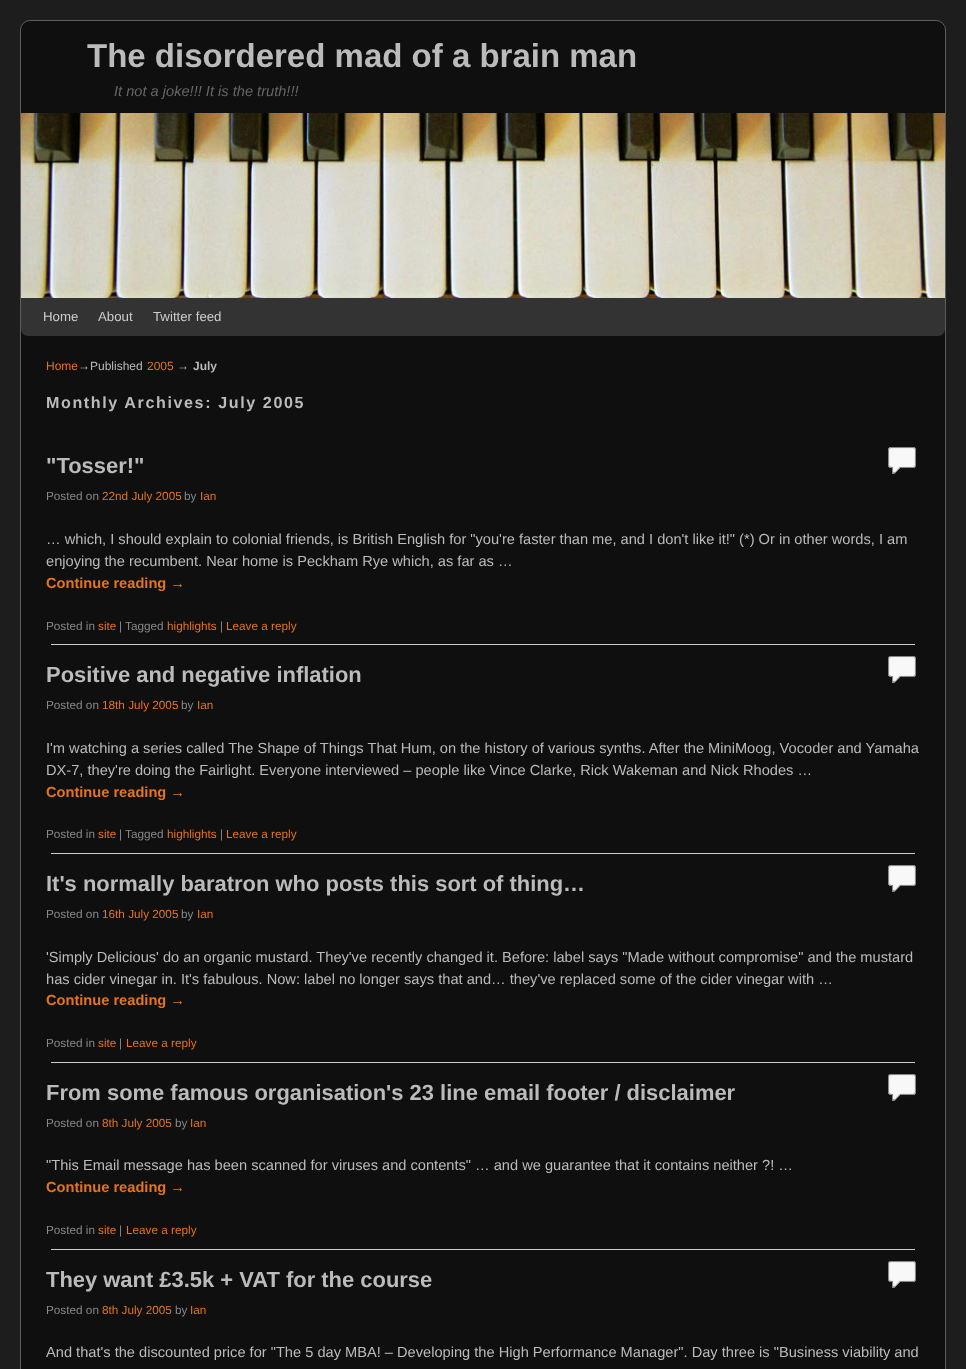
<!DOCTYPE html>
<meta charset="utf-8">
<style>body { margin: 0 } canvas { display: block }</style>
<canvas id="canvas" width="966" height="1369"></canvas>
<img id="img1" src="images/1.png" hidden>
<img id="img2" src="images/2.png" hidden>
<script>
window.onload = function () {
    const canvas = document.getElementById('canvas');
    const context = canvas.getContext('2d');
    context.miterLimit = 4;
    context.fontKerning = 'normal';

    context.fillStyle = 'rgb(29, 29, 29)';
    context.fillRect(0, 0, 966, 1369);
    context.fillStyle = 'rgb(15, 15, 15)';
    context.beginPath();
    context.roundRect(20.5, 20.5, 925, 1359, 9.5);
    context.fill();
    context.strokeStyle = 'rgb(94, 94, 94)';
    context.stroke();
    context.drawImage(document.getElementById('img1'), 21, 113, 924, 185);
    context.fillStyle = 'rgb(51, 51, 51)';
    context.beginPath();
    context.roundRect(21, 298, 924, 38, [0, 0, 7, 7]);
    context.fill();
    context.fillStyle = 'rgb(204, 204, 204)';
    context.fillRect(51, 644, 864, 1);
    context.drawImage(document.getElementById('img2'), 888, 447, 28, 27);
    context.fillRect(51, 853, 864, 1);
    context.drawImage(document.getElementById('img2'), 888, 656, 28, 27);
    context.fillRect(51, 1062, 864, 1);
    context.drawImage(document.getElementById('img2'), 888, 865, 28, 27);
    context.fillRect(51, 1249, 864, 1);
    context.drawImage(document.getElementById('img2'), 888, 1074, 28, 27);
    context.drawImage(document.getElementById('img2'), 888, 1261, 28, 27);
    context.font = 'bold 33px Liberation Sans';
    context.fillStyle = 'rgb(187, 187, 187)';
    context.fillText('The disordered mad of a brain man', 87, 67);
    context.font = 'italic 14.63px Liberation Sans';
    context.fillStyle = 'rgb(102, 102, 102)';
    context.fillText('It not a joke!!! It is the truth!!!', 114, 96);
    context.font = '13.25px Liberation Sans';
    context.fillStyle = 'rgb(204, 204, 204)';
    context.fillText('Home', 43, 321);
    context.fillText('About', 98, 321);
    context.fillText('Twitter feed', 153, 321);
    context.font = '12px Liberation Sans';
    context.fillStyle = 'rgb(228, 116, 31)';
    context.fillText('Home', 46, 370);
    context.fillStyle = 'rgb(187, 187, 187)';
    context.fillText('→Published', 78, 370);
    context.fillStyle = 'rgb(228, 116, 31)';
    context.fillText('2005', 147, 370);
    context.fillStyle = 'rgb(187, 187, 187)';
    context.fillText('→', 177, 370);
    context.font = 'bold 12px Liberation Sans';
    context.fillText('July', 193, 370);
    context.letterSpacing = '1.6px';
    context.font = 'bold 16.1px Liberation Sans';
    context.fillText('Monthly Archives: July 2005', 46, 408);
    context.letterSpacing = '0px';
    context.font = 'bold 21.95px Liberation Sans';
    context.fillText('"Tosser!"', 46, 473);
    context.font = '11.75px Liberation Sans';
    context.fillStyle = 'rgb(136, 136, 136)';
    context.fillText('Posted on', 46, 500);
    context.fillStyle = 'rgb(228, 116, 31)';
    context.fillText('22nd July 2005', 102, 500);
    context.fillStyle = 'rgb(136, 136, 136)';
    context.fillText('by', 184, 500);
    context.fillStyle = 'rgb(228, 116, 31)';
    context.fillText('Ian', 200, 500);
    context.font = '14.63px Liberation Sans';
    context.fillStyle = 'rgb(187, 187, 187)';
    context.fillText('… which, I should explain to colonial friends, is British English for "you\'re faster than me, and I don\'t like it!" (*) Or in other words, I am', 46, 544);
    context.fillText('enjoying the recumbent. Near home is Peckham Rye which, as far as …', 46, 566);
    context.font = 'bold 14.63px Liberation Sans';
    context.fillStyle = 'rgb(228, 116, 31)';
    context.fillText('Continue reading →', 46, 588);
    context.font = '11.75px Liberation Sans';
    context.fillStyle = 'rgb(136, 136, 136)';
    context.fillText('Posted in', 46, 630);
    context.fillStyle = 'rgb(228, 116, 31)';
    context.fillText('site', 98, 630);
    context.fillStyle = 'rgb(136, 136, 136)';
    context.fillText('| Tagged', 119, 630);
    context.fillStyle = 'rgb(228, 116, 31)';
    context.fillText('highlights', 167, 630);
    context.fillStyle = 'rgb(136, 136, 136)';
    context.fillText('|', 220, 630);
    context.fillStyle = 'rgb(228, 116, 31)';
    context.fillText('Leave a reply', 226, 630);
    context.font = 'bold 21.95px Liberation Sans';
    context.fillStyle = 'rgb(187, 187, 187)';
    context.fillText('Positive and negative inflation', 46, 682);
    context.font = '11.75px Liberation Sans';
    context.fillStyle = 'rgb(136, 136, 136)';
    context.fillText('Posted on', 46, 709);
    context.fillStyle = 'rgb(228, 116, 31)';
    context.fillText('18th July 2005', 102, 709);
    context.fillStyle = 'rgb(136, 136, 136)';
    context.fillText('by', 181, 709);
    context.fillStyle = 'rgb(228, 116, 31)';
    context.fillText('Ian', 197, 709);
    context.font = '14.63px Liberation Sans';
    context.fillStyle = 'rgb(187, 187, 187)';
    context.fillText('I\'m watching a series called The Shape of Things That Hum, on the history of various synths. After the MiniMoog, Vocoder and Yamaha', 46, 753);
    context.fillText('DX-7, they\'re doing the Fairlight. Everyone interviewed – people like Vince Clarke, Rick Wakeman and Nick Rhodes …', 46, 775);
    context.font = 'bold 14.63px Liberation Sans';
    context.fillStyle = 'rgb(228, 116, 31)';
    context.fillText('Continue reading →', 46, 797);
    context.font = '11.75px Liberation Sans';
    context.fillStyle = 'rgb(136, 136, 136)';
    context.fillText('Posted in', 46, 838);
    context.fillStyle = 'rgb(228, 116, 31)';
    context.fillText('site', 98, 838);
    context.fillStyle = 'rgb(136, 136, 136)';
    context.fillText('| Tagged', 119, 838);
    context.fillStyle = 'rgb(228, 116, 31)';
    context.fillText('highlights', 167, 838);
    context.fillStyle = 'rgb(136, 136, 136)';
    context.fillText('|', 220, 838);
    context.fillStyle = 'rgb(228, 116, 31)';
    context.fillText('Leave a reply', 226, 838);
    context.font = 'bold 21.95px Liberation Sans';
    context.fillStyle = 'rgb(187, 187, 187)';
    context.fillText('It\'s normally baratron who posts this sort of thing…', 46, 891);
    context.font = '11.75px Liberation Sans';
    context.fillStyle = 'rgb(136, 136, 136)';
    context.fillText('Posted on', 46, 918);
    context.fillStyle = 'rgb(228, 116, 31)';
    context.fillText('16th July 2005', 102, 918);
    context.fillStyle = 'rgb(136, 136, 136)';
    context.fillText('by', 181, 918);
    context.fillStyle = 'rgb(228, 116, 31)';
    context.fillText('Ian', 197, 918);
    context.font = '14.63px Liberation Sans';
    context.fillStyle = 'rgb(187, 187, 187)';
    context.fillText('\'Simply Delicious\' do an organic mustard. They\'ve recently changed it. Before: label says "Made without compromise" and the mustard', 46, 962);
    context.fillText('has cider vinegar in. It\'s fabulous. Now: label no longer says that and… they\'ve replaced some of the cider vinegar with …', 46, 984);
    context.font = 'bold 14.63px Liberation Sans';
    context.fillStyle = 'rgb(228, 116, 31)';
    context.fillText('Continue reading →', 46, 1005);
    context.font = '11.75px Liberation Sans';
    context.fillStyle = 'rgb(136, 136, 136)';
    context.fillText('Posted in', 46, 1047);
    context.fillStyle = 'rgb(228, 116, 31)';
    context.fillText('site', 98, 1047);
    context.fillStyle = 'rgb(136, 136, 136)';
    context.fillText('|', 119, 1047);
    context.fillStyle = 'rgb(228, 116, 31)';
    context.fillText('Leave a reply', 126, 1047);
    context.font = 'bold 21.95px Liberation Sans';
    context.fillStyle = 'rgb(187, 187, 187)';
    context.fillText('From some famous organisation\'s 23 line email footer / disclaimer', 46, 1100);
    context.font = '11.75px Liberation Sans';
    context.fillStyle = 'rgb(136, 136, 136)';
    context.fillText('Posted on', 46, 1127);
    context.fillStyle = 'rgb(228, 116, 31)';
    context.fillText('8th July 2005', 102, 1127);
    context.fillStyle = 'rgb(136, 136, 136)';
    context.fillText('by', 175, 1127);
    context.fillStyle = 'rgb(228, 116, 31)';
    context.fillText('Ian', 190, 1127);
    context.font = '14.63px Liberation Sans';
    context.fillStyle = 'rgb(187, 187, 187)';
    context.fillText('"This Email message has been scanned for viruses and contents" … and we guarantee that it contains neither ?! …', 46, 1170);
    context.font = 'bold 14.63px Liberation Sans';
    context.fillStyle = 'rgb(228, 116, 31)';
    context.fillText('Continue reading →', 46, 1192);
    context.font = '11.75px Liberation Sans';
    context.fillStyle = 'rgb(136, 136, 136)';
    context.fillText('Posted in', 46, 1234);
    context.fillStyle = 'rgb(228, 116, 31)';
    context.fillText('site', 98, 1234);
    context.fillStyle = 'rgb(136, 136, 136)';
    context.fillText('|', 119, 1234);
    context.fillStyle = 'rgb(228, 116, 31)';
    context.fillText('Leave a reply', 126, 1234);
    context.font = 'bold 21.95px Liberation Sans';
    context.fillStyle = 'rgb(187, 187, 187)';
    context.fillText('They want £3.5k + VAT for the course', 46, 1287);
    context.font = '11.75px Liberation Sans';
    context.fillStyle = 'rgb(136, 136, 136)';
    context.fillText('Posted on', 46, 1314);
    context.fillStyle = 'rgb(228, 116, 31)';
    context.fillText('8th July 2005', 102, 1314);
    context.fillStyle = 'rgb(136, 136, 136)';
    context.fillText('by', 175, 1314);
    context.fillStyle = 'rgb(228, 116, 31)';
    context.fillText('Ian', 190, 1314);
    context.font = '14.63px Liberation Sans';
    context.fillStyle = 'rgb(187, 187, 187)';
    context.fillText('And that\'s the discounted price for "The 5 day MBA! – Developing the High Performance Manager". Day three is "Business viability and', 46, 1357);
};
</script>
